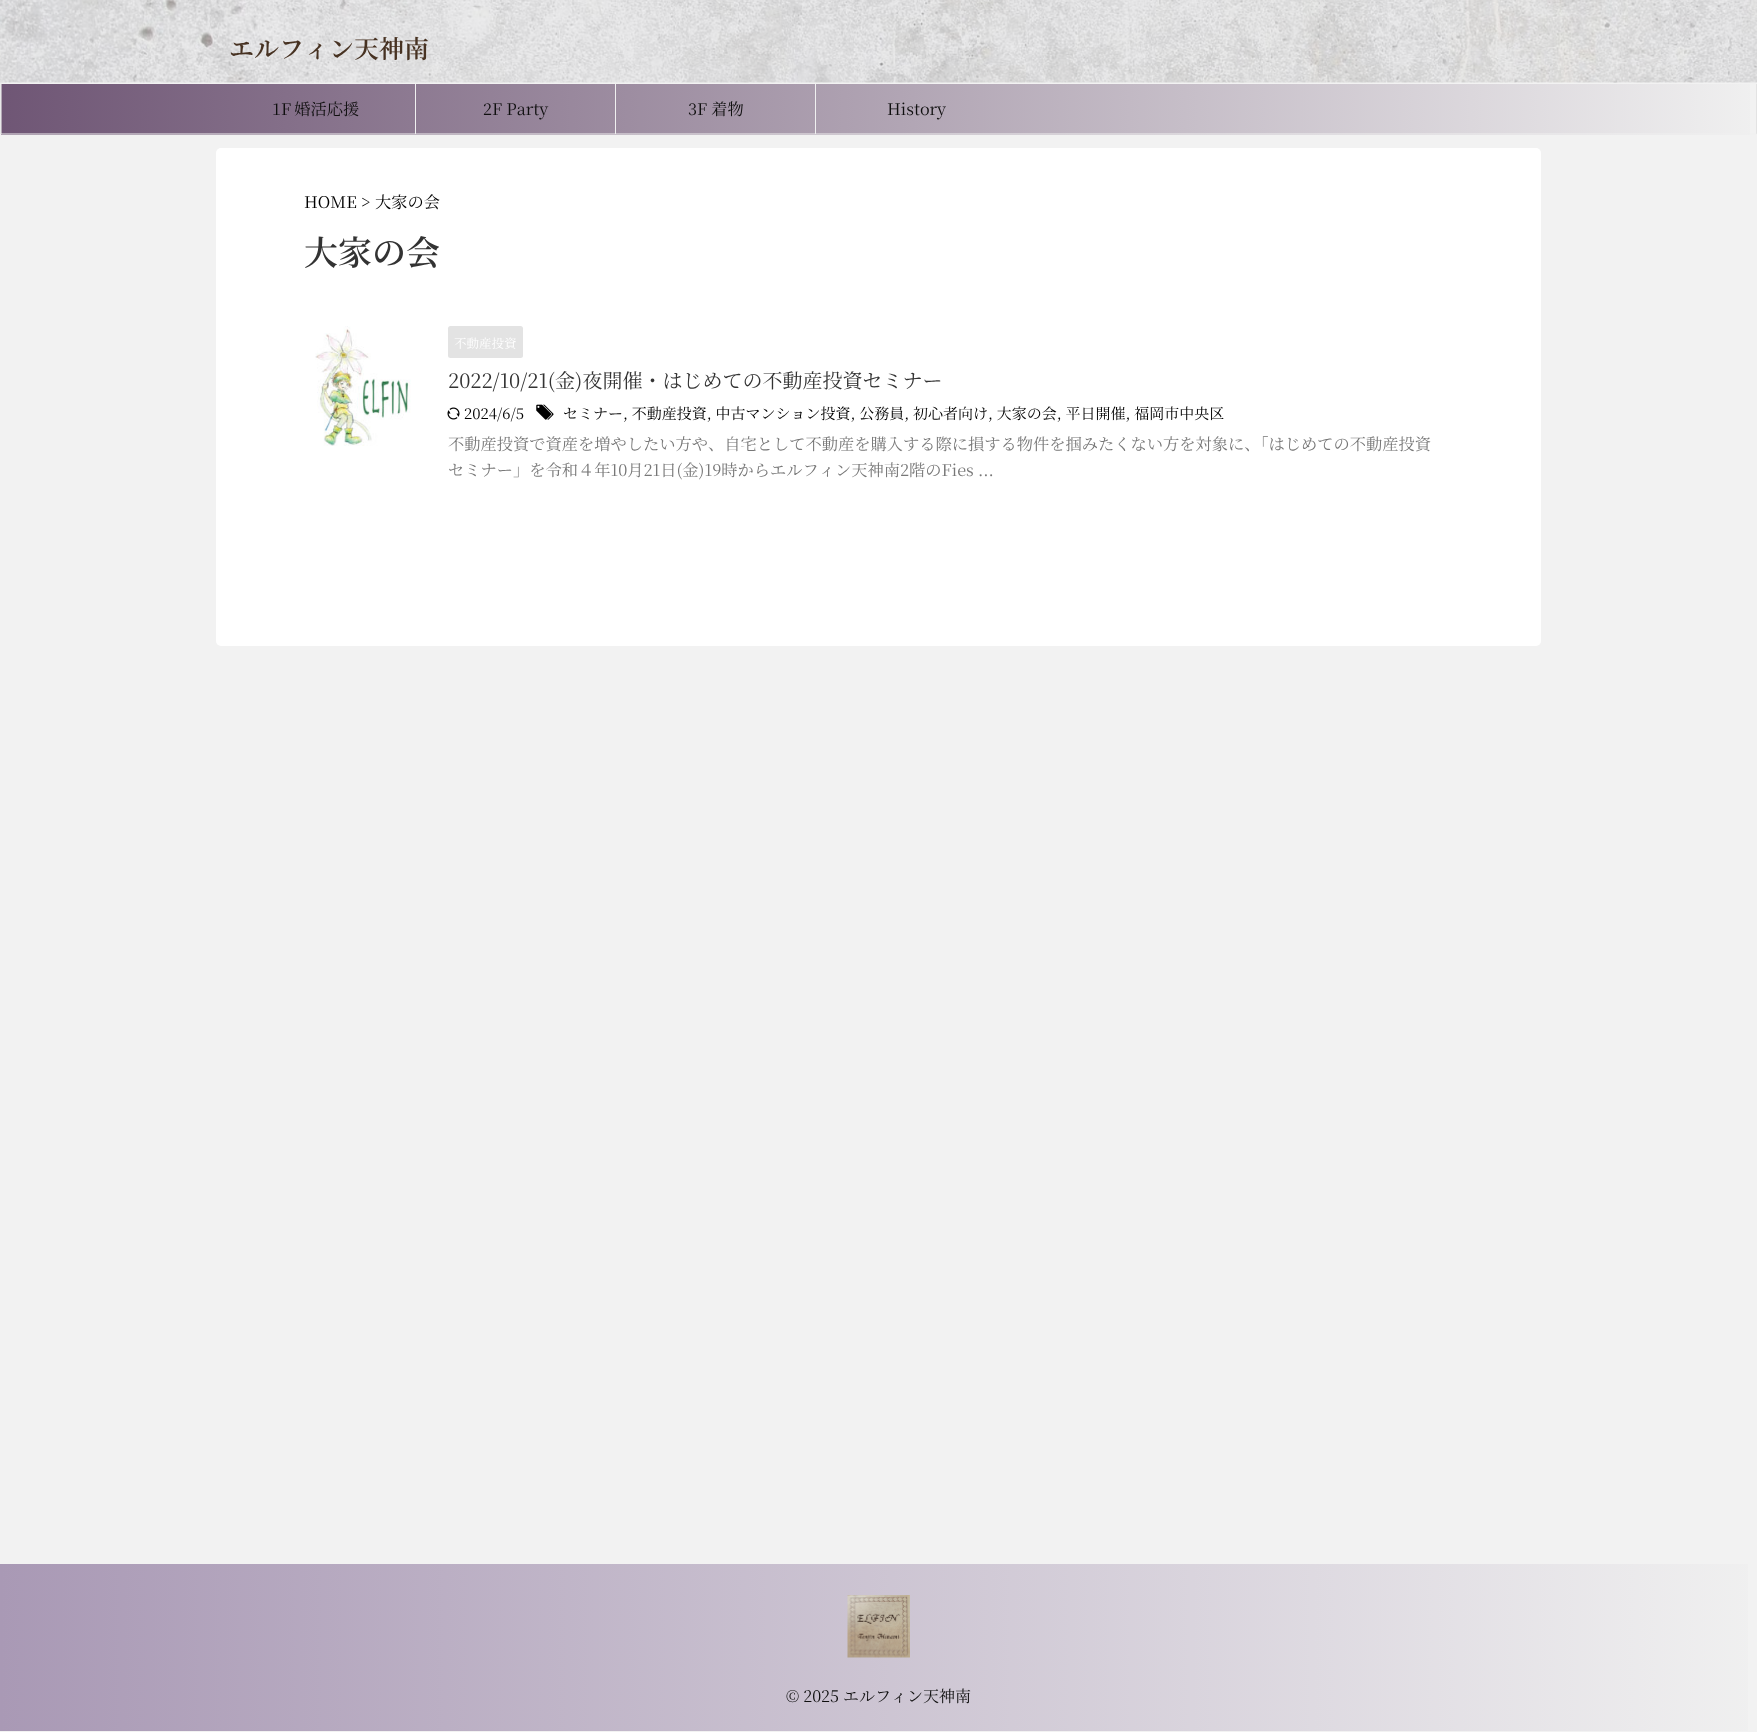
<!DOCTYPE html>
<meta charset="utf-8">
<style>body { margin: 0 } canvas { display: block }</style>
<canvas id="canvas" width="1757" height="1732"></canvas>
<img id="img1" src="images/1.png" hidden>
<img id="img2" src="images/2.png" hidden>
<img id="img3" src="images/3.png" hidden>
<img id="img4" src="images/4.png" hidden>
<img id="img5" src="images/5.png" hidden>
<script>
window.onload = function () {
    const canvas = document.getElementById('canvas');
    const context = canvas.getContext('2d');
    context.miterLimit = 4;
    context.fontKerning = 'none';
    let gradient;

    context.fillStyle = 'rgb(242, 242, 242)';
    context.fillRect(0, 0, 1757, 1732);
    context.drawImage(document.getElementById('img1'), 0, 0, 1757, 83);
    gradient = context.createLinearGradient(1756, 109, 1.2, 109);
    gradient.addColorStop(0, 'rgb(240, 240, 240)');
    gradient.addColorStop(1, 'rgb(111, 86, 117)');
    context.fillStyle = gradient;
    context.fillRect(1, 84, 1749, 51);
    context.fillStyle = 'rgb(227, 227, 227)';
    context.fillRect(1756, 84, 1, 50);
    context.beginPath();
    context.moveTo(1756.5, 134);
    context.lineTo(1, 134);
    context.strokeStyle = 'rgb(240, 240, 240)';
    context.lineWidth = 1.2;
    context.stroke();
    context.beginPath();
    context.moveTo(1, 134);
    context.lineTo(1, 83.5);
    context.strokeStyle = 'rgb(227, 227, 227)';
    context.stroke();
    context.fillStyle = 'rgb(240, 240, 240)';
    context.fillRect(415, 84, 1, 50);
    context.fillRect(615, 84, 1, 50);
    context.fillRect(815, 84, 1, 50);
    context.fillStyle = 'rgb(255, 255, 255)';
    context.beginPath();
    context.roundRect(216, 148, 1325, 498, 5);
    context.fill();
    context.drawImage(document.getElementById('img2'), 315, 326, 96, 120);
    context.fillStyle = 'rgb(227, 227, 227)';
    context.beginPath();
    context.roundRect(448, 326, 75, 32, 2.5);
    context.fill();
    context.drawImage(document.getElementById('img3'), 447, 407, 13, 13);
    context.drawImage(document.getElementById('img4'), 536, 404, 18, 16);
    gradient = context.createLinearGradient(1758, 1648, 0, 1648);
    gradient.addColorStop(0, 'rgb(240, 240, 240)');
    gradient.addColorStop(1, 'rgb(169, 153, 181)');
    context.fillStyle = gradient;
    context.fillRect(0, 1564, 1748, 167);
    context.drawImage(document.getElementById('img5'), 847, 1595, 63, 63);
    context.font = '600 25px Noto Serif JP';
    context.fillStyle = 'rgb(71, 50, 34)';
    context.fillText('エルフィン天神南', 229, 58);
    context.wordSpacing = '-1px';
    context.font = '16.25px Noto Serif JP';
    context.fillStyle = 'rgb(15, 15, 15)';
    context.fillText('1F 婚活応援', 272, 115);
    context.wordSpacing = '0px';
    context.fillText('2F Party', 483, 115);
    context.fillText('3F 着物', 688, 115);
    context.fillText('History', 887, 115);
    context.fillStyle = 'rgb(0, 0, 0)';
    context.fillText('HOME >', 304, 208);
    context.fillText('大家の会', 375, 208);
    context.font = '600 34px Noto Serif JP';
    context.fillStyle = 'rgb(51, 51, 51)';
    context.fillText('大家の会', 304, 265);
    context.font = '12.5px Noto Serif JP';
    context.fillStyle = 'rgb(255, 255, 255)';
    context.fillText('不動産投資', 454, 348);
    context.font = '20px Noto Serif JP';
    context.fillStyle = 'rgb(51, 51, 51)';
    context.fillText('2022/10/21(金)夜開催・はじめての不動産投資セミナー', 448, 388);
    context.font = '15px Noto Serif JP';
    context.fillStyle = 'rgb(0, 0, 0)';
    context.fillText('2024/6/5', 464, 419);
    context.fillText('セミナー, 不動産投資, 中古マンション投資, 公務員, 初心者向け, 大家の会, 平日開催, 福岡市中央区', 563, 419);
    context.font = '16.25px Noto Serif JP';
    context.fillStyle = 'rgb(119, 119, 119)';
    context.fillText('不動産投資で資産を増やしたい方や、自宅として不動産を購入する際に損する物件を掴みたくない方を対象に、「はじめての不動産投資', 448, 450);
    context.fillText('セミナー」を令和４年10月21日(金)19時からエルフィン天神南2階のFies ...', 448, 476);
    context.font = '16px Noto Serif JP';
    context.fillStyle = 'rgb(15, 15, 15)';
    context.fillText('© 2025 エルフィン天神南', 786, 1702);
};
</script>
